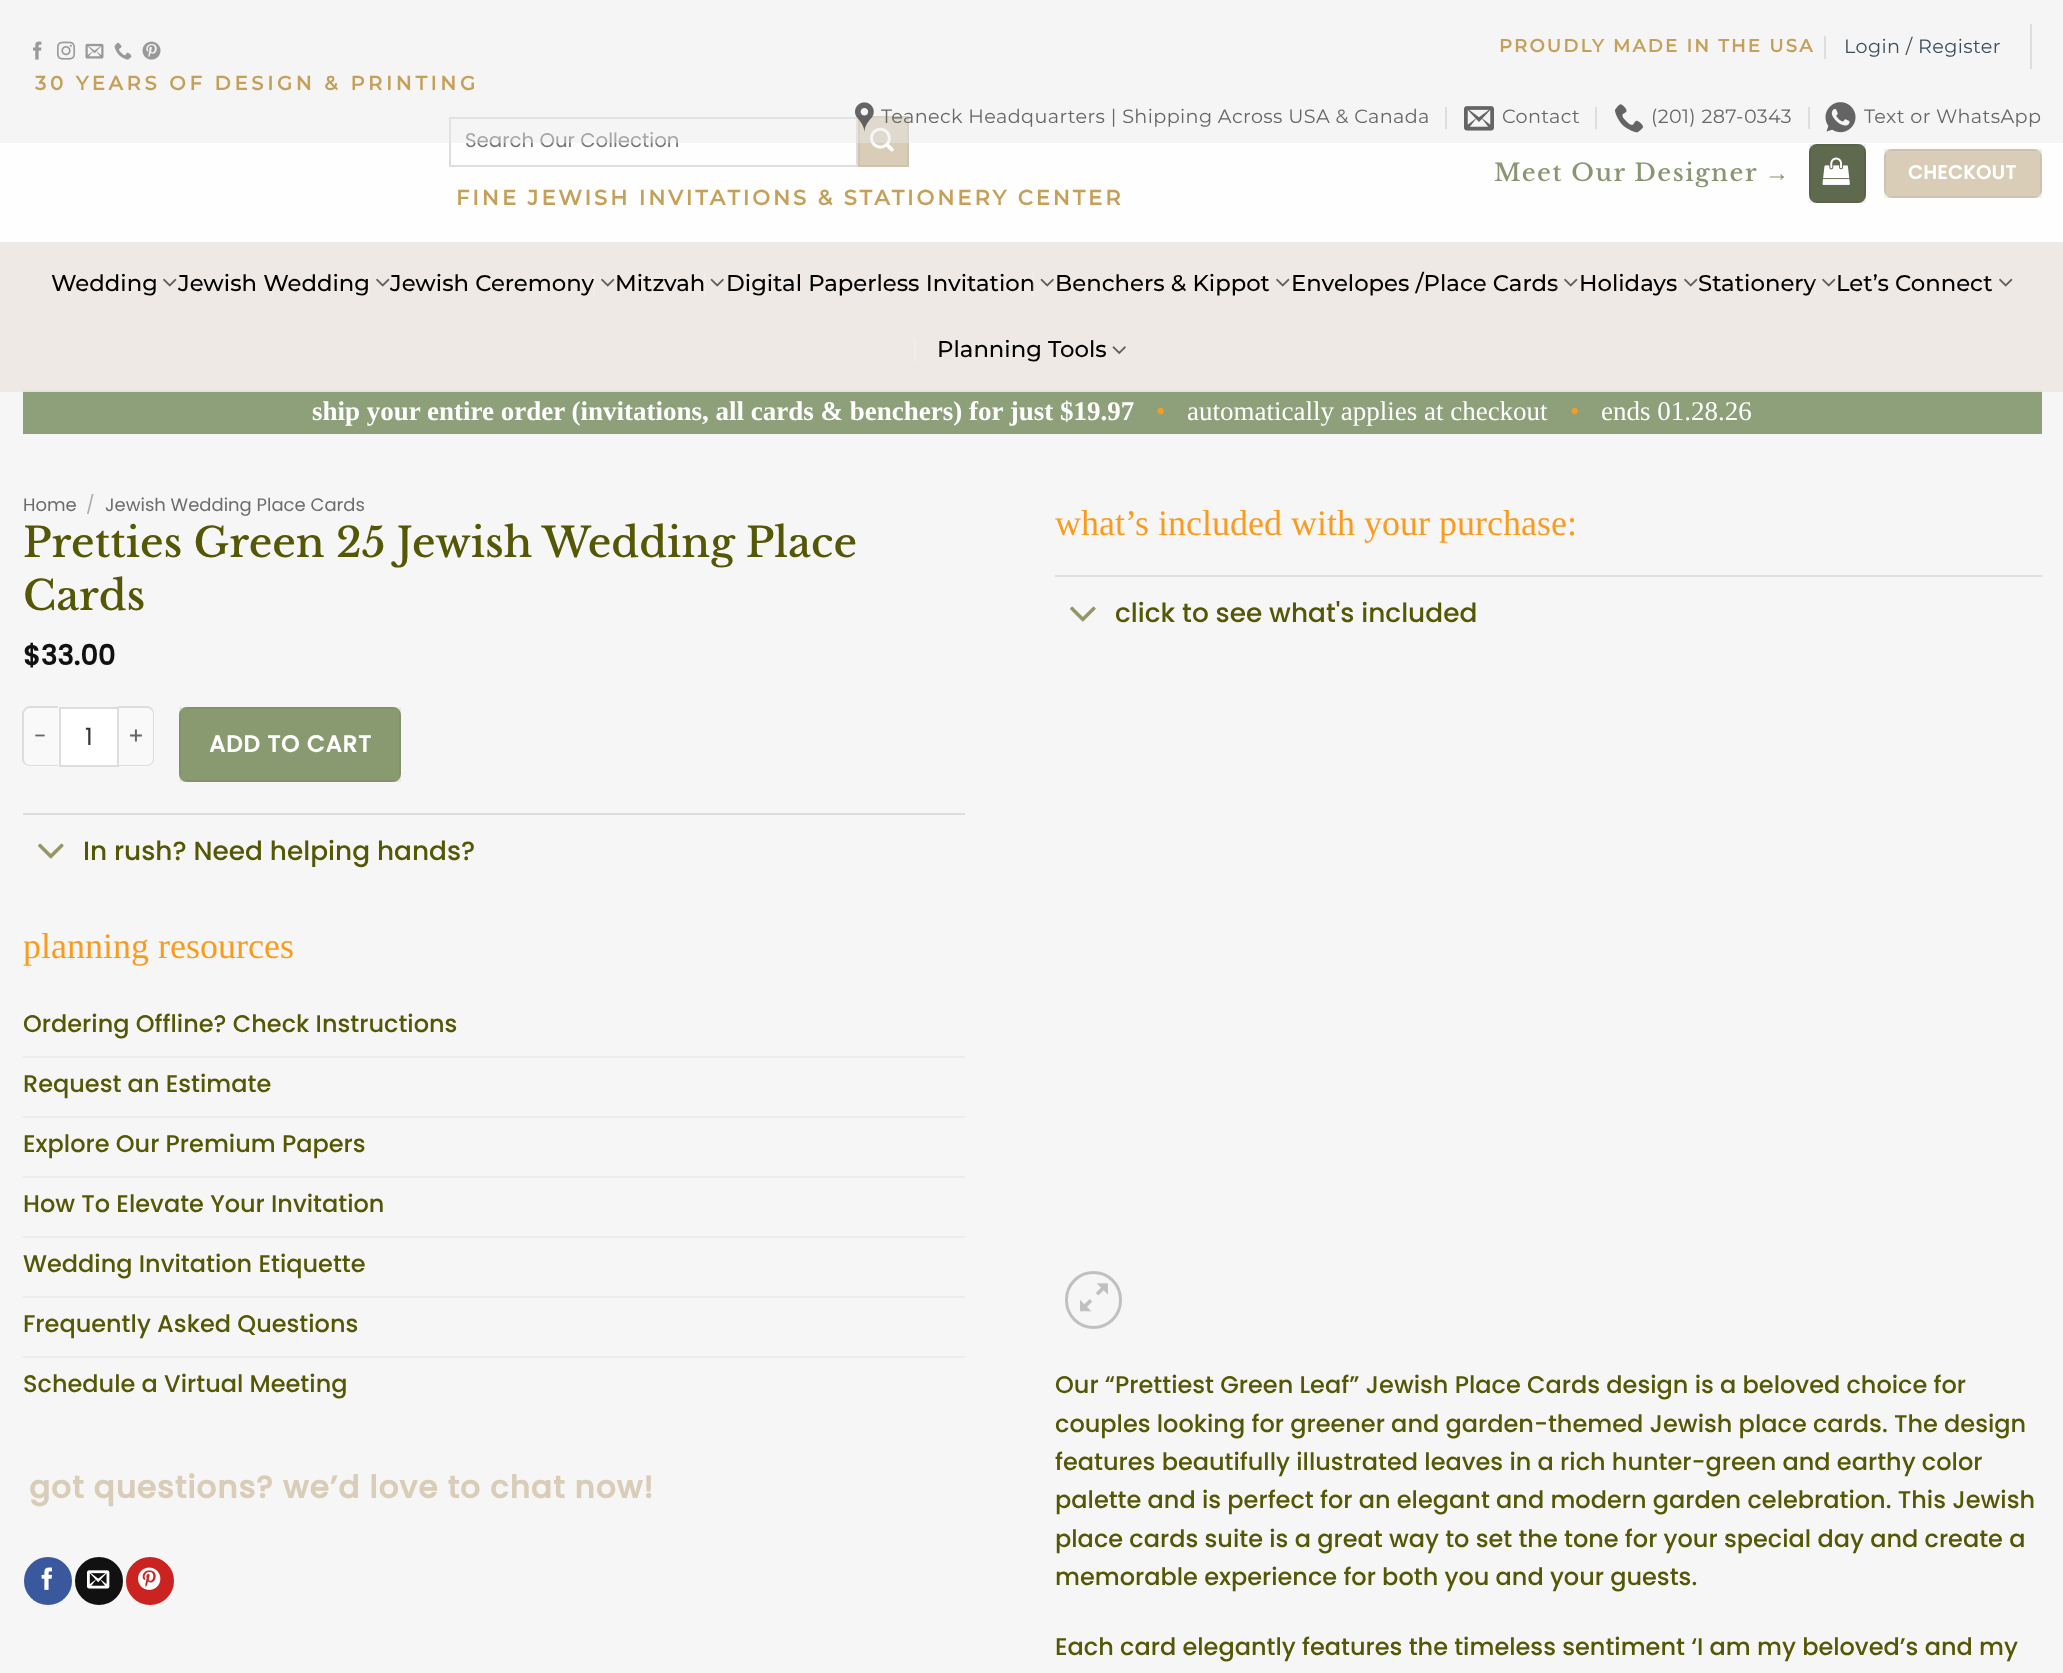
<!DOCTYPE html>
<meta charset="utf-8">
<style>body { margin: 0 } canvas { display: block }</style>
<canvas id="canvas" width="2063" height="1673"></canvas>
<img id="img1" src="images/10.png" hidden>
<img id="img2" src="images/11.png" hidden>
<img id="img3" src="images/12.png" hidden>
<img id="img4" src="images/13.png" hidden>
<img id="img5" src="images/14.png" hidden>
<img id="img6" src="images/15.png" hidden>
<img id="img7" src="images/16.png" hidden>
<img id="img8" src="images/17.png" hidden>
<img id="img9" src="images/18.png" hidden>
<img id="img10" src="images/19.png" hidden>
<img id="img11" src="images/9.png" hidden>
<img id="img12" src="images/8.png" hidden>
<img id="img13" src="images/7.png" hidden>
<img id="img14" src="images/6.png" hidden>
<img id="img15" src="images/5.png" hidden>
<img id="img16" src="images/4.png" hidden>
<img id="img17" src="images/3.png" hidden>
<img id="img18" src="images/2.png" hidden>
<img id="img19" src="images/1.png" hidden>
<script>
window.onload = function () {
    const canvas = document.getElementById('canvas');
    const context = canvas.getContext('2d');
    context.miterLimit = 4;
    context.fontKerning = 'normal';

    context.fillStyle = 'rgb(247, 246, 246)';
    context.fillRect(0, 0, 2063, 1673);
    context.fillStyle = 'rgb(254, 254, 254)';
    context.fillRect(0, 0, 2063, 242);
    context.fillStyle = 'rgb(238, 233, 228)';
    context.fillRect(0, 242, 2063, 150);
    context.strokeStyle = 'rgb(221, 221, 221)';
    context.lineWidth = 2;
    context.strokeRect(450, 118, 407, 48);
    context.fillStyle = 'rgb(217, 205, 184)';
    context.beginPath();
    context.rect(859, 117, 49, 49);
    context.fill();
    context.strokeStyle = 'rgb(206, 195, 175)';
    context.stroke();
    context.drawImage(document.getElementById('img1'), 870, 127, 24, 25);
    context.fillStyle = 'rgb(95, 105, 77)';
    context.beginPath();
    context.roundRect(1809, 144, 57, 59, 8);
    context.fill();
    context.strokeStyle = 'rgba(0, 0, 0, 0.05)';
    context.strokeRect(1810, 145, 55, 57);
    context.drawImage(document.getElementById('img2'), 1822, 157, 28, 28);
    context.fillStyle = 'rgb(217, 205, 184)';
    context.beginPath();
    context.roundRect(1884, 149, 158, 49, 8);
    context.fill();
    context.strokeRect(1885, 150, 156, 47);
    context.drawImage(document.getElementById('img3'), 163, 278, 14, 9);
    context.drawImage(document.getElementById('img3'), 376, 278, 14, 9);
    context.drawImage(document.getElementById('img3'), 601, 278, 14, 9);
    context.drawImage(document.getElementById('img4'), 710, 278, 14, 9);
    context.fillStyle = 'rgb(242, 237, 234)';
    context.fillRect(704, 273, 2, 23);
    context.drawImage(document.getElementById('img4'), 1040, 278, 14, 9);
    context.drawImage(document.getElementById('img3'), 1276, 278, 14, 9);
    context.drawImage(document.getElementById('img3'), 1564, 278, 14, 9);
    context.drawImage(document.getElementById('img3'), 1684, 278, 14, 9);
    context.drawImage(document.getElementById('img3'), 1822, 278, 14, 9);
    context.drawImage(document.getElementById('img3'), 1999, 278, 14, 9);
    context.fillRect(914, 339, 2, 23);
    context.drawImage(document.getElementById('img5'), 1112, 346, 14, 8);
    context.fillStyle = 'rgb(141, 160, 122)';
    context.fillRect(23, 392, 2019, 42);
    context.fillStyle = 'rgb(230, 226, 218)';
    context.fillRect(23, 390, 2019, 2);
    context.fillStyle = 'rgb(249, 249, 249)';
    context.beginPath();
    context.roundRect(23, 707, 36, 60, [8, 0, 0, 8]);
    context.fill();
    context.fillStyle = 'rgb(221, 221, 221)';
    context.beginPath();
    context.moveTo(30, 706);
    context.lineTo(58, 706);
    context.lineTo(58, 766);
    context.lineTo(30, 766);
    context.bezierCurveTo(26, 766, 22, 763, 22, 759);
    context.lineTo(22, 714);
    context.bezierCurveTo(22, 710, 26, 706, 30, 706);
    context.closePath();
    context.moveTo(30, 708);
    context.lineTo(58, 708);
    context.lineTo(58, 765);
    context.lineTo(30, 765);
    context.bezierCurveTo(27, 765, 24, 762, 24, 759);
    context.lineTo(24, 714);
    context.bezierCurveTo(24, 711, 27, 708, 30, 708);
    context.closePath();
    context.fill('evenodd');
    context.fillStyle = 'rgb(255, 255, 255)';
    context.beginPath();
    context.rect(60, 708, 58, 58);
    context.fill();
    context.strokeStyle = 'rgb(221, 221, 221)';
    context.stroke();
    context.fillStyle = 'rgb(249, 249, 249)';
    context.beginPath();
    context.roundRect(119, 707, 36, 60, [0, 8, 8, 0]);
    context.fill();
    context.fillStyle = 'rgb(221, 221, 221)';
    context.beginPath();
    context.moveTo(118, 706);
    context.lineTo(147, 706);
    context.bezierCurveTo(151, 706, 154, 710, 154, 714);
    context.lineTo(154, 759);
    context.bezierCurveTo(154, 763, 151, 766, 147, 766);
    context.lineTo(118, 766);
    context.closePath();
    context.moveTo(118, 708);
    context.lineTo(147, 708);
    context.bezierCurveTo(150, 708, 153, 711, 153, 714);
    context.lineTo(153, 759);
    context.bezierCurveTo(153, 762, 150, 765, 147, 765);
    context.lineTo(118, 765);
    context.closePath();
    context.fill('evenodd');
    context.fillStyle = 'rgb(138, 154, 112)';
    context.beginPath();
    context.roundRect(179, 707, 222, 75, 8);
    context.fill();
    context.strokeStyle = 'rgba(0, 0, 0, 0.05)';
    context.strokeRect(180, 708, 220, 73);
    context.fillStyle = 'rgb(221, 221, 221)';
    context.fillRect(23, 813, 942, 2);
    context.drawImage(document.getElementById('img6'), 38, 843, 26, 16);
    context.fillStyle = 'rgb(236, 236, 236)';
    context.fillRect(23, 1056, 942, 2);
    context.fillRect(23, 1116, 942, 2);
    context.fillRect(23, 1176, 942, 2);
    context.fillRect(23, 1236, 942, 2);
    context.fillRect(23, 1296, 942, 2);
    context.fillRect(23, 1356, 942, 2);
    context.fillStyle = 'rgb(58, 88, 157)';
    context.beginPath();
    context.arc(48, 1581, 23, 0, 2 * Math.PI);
    context.fill();
    context.strokeStyle = 'rgb(58, 88, 157)';
    context.stroke();
    context.drawImage(document.getElementById('img7'), 41, 1567, 11, 23);
    context.fillStyle = 'rgb(17, 17, 17)';
    context.beginPath();
    context.arc(99, 1581, 23, 0, 2 * Math.PI);
    context.fill();
    context.strokeStyle = 'rgb(17, 17, 17)';
    context.stroke();
    context.drawImage(document.getElementById('img8'), 87, 1570, 23, 19);
    context.fillStyle = 'rgb(203, 35, 32)';
    context.beginPath();
    context.arc(150, 1581, 23, 0, 2 * Math.PI);
    context.fill();
    context.strokeStyle = 'rgb(203, 35, 32)';
    context.stroke();
    context.drawImage(document.getElementById('img9'), 138, 1567, 23, 23);
    context.fillStyle = 'rgb(221, 221, 221)';
    context.fillRect(1055, 575, 987, 2);
    context.drawImage(document.getElementById('img6'), 1070, 606, 26, 16);
    context.beginPath();
    context.roundRect(1066.5, 1272.5, 54, 55, 27);
    context.strokeStyle = 'rgb(192, 192, 192)';
    context.lineWidth = 3;
    context.stroke();
    context.drawImage(document.getElementById('img10'), 1080, 1283, 28, 29);
    context.font = '19.75px Poppins';
    context.fillStyle = 'rgb(117, 117, 117)';
    context.fillText('Search Our Collection', 465, 147);
    context.fillStyle = 'rgba(234, 234, 234, 0.42)';
    context.fillRect(0, 0, 2063, 143);
    context.fillStyle = 'rgb(221, 221, 221)';
    context.fillRect(1808, 107, 2, 22);
    context.drawImage(document.getElementById('img11'), 1825, 102, 31, 31);
    context.letterSpacing = '0.38px';
    context.font = '19.2px Montserrat';
    context.fillStyle = 'rgb(102, 102, 102)';
    context.fillText('Text or WhatsApp', 1864, 123);
    context.fillStyle = 'rgb(221, 221, 221)';
    context.fillRect(1595, 107, 2, 22);
    context.drawImage(document.getElementById('img12'), 1615, 104, 28, 29);
    context.fillStyle = 'rgb(102, 102, 102)';
    context.fillText('(201) 287-0343', 1651, 123);
    context.fillStyle = 'rgb(221, 221, 221)';
    context.fillRect(1445, 107, 2, 22);
    context.drawImage(document.getElementById('img13'), 1464, 106, 30, 25);
    context.fillStyle = 'rgb(102, 102, 102)';
    context.fillText('Contact', 1502, 123);
    context.drawImage(document.getElementById('img14'), 855, 102, 19, 30);
    context.fillText('Teaneck Headquarters | Shipping Across USA & Canada', 881, 123);
    context.fillStyle = 'rgb(221, 221, 221)';
    context.fillRect(2030, 24, 2, 45);
    context.fillRect(1824, 36, 2, 23);
    context.fillStyle = 'rgb(60, 78, 92)';
    context.fillText('Login / Register', 1844, 53);
    context.letterSpacing = '2.25px';
    context.font = 'bold 18px Montserrat';
    context.fillStyle = 'rgb(197, 160, 89)';
    context.fillText('PROUDLY MADE IN THE USA', 1499, 52);
    context.letterSpacing = '3.75px';
    context.font = 'bold 19.5px Montserrat';
    context.fillText('30 YEARS OF DESIGN & PRINTING', 35, 90);
    context.drawImage(document.getElementById('img15'), 142, 41, 19, 19);
    context.drawImage(document.getElementById('img16'), 114, 42, 18, 18);
    context.drawImage(document.getElementById('img17'), 85, 43, 19, 16);
    context.drawImage(document.getElementById('img18'), 57, 41, 18, 19);
    context.drawImage(document.getElementById('img19'), 33, 41, 9, 19);
    context.letterSpacing = '3px';
    context.font = 'bold 21px Montserrat';
    context.fillText('FINE JEWISH INVITATIONS & STATIONERY CENTER', 456, 205);
    context.letterSpacing = '1.5px';
    context.font = '500 24px Libre Baskerville';
    context.fillStyle = 'rgb(138, 150, 113)';
    context.fillText('Meet Our Designer', 1494, 181);
    context.font = '24px Liberation Sans';
    context.fillText('→', 1765, 181);
    context.letterSpacing = '0.5px';
    context.font = 'bold 19.2px Poppins';
    context.fillStyle = 'rgb(255, 255, 255)';
    context.fillText('CHECKOUT', 1908, 179);
    context.letterSpacing = '0px';
    context.font = '500 22.75px Montserrat';
    context.fillStyle = 'rgb(0, 0, 0)';
    context.fillText('Wedding', 51, 291);
    context.fillStyle = 'rgba(255, 255, 255, 0.2)';
    context.fillRect(155, 273, 2, 23);
    context.fillStyle = 'rgb(0, 0, 0)';
    context.fillText('Jewish Wedding', 178, 291);
    context.fillStyle = 'rgba(255, 255, 255, 0.2)';
    context.fillRect(368, 273, 2, 23);
    context.fillStyle = 'rgb(0, 0, 0)';
    context.fillText('Jewish Ceremony', 390, 291);
    context.fillStyle = 'rgba(255, 255, 255, 0.2)';
    context.fillRect(593, 273, 2, 23);
    context.fillStyle = 'rgb(0, 0, 0)';
    context.fillText('Mitzvah', 615, 291);
    context.fillText('Digital Paperless Invitation', 726, 291);
    context.fillStyle = 'rgba(255, 255, 255, 0.2)';
    context.fillRect(1032, 273, 2, 23);
    context.fillStyle = 'rgb(0, 0, 0)';
    context.fillText('Benchers & Kippot', 1055, 291);
    context.fillStyle = 'rgba(255, 255, 255, 0.2)';
    context.fillRect(1268, 273, 2, 23);
    context.fillStyle = 'rgb(0, 0, 0)';
    context.fillText('Envelopes /Place Cards', 1291, 291);
    context.fillStyle = 'rgba(255, 255, 255, 0.2)';
    context.fillRect(1556, 273, 2, 23);
    context.fillStyle = 'rgb(0, 0, 0)';
    context.fillText('Holidays', 1579, 291);
    context.fillStyle = 'rgba(255, 255, 255, 0.2)';
    context.fillRect(1676, 273, 2, 23);
    context.fillStyle = 'rgb(0, 0, 0)';
    context.fillText('Stationery', 1698, 291);
    context.fillStyle = 'rgba(255, 255, 255, 0.2)';
    context.fillRect(1814, 273, 2, 23);
    context.fillStyle = 'rgb(0, 0, 0)';
    context.fillText('Let’s Connect', 1836, 291);
    context.fillText('Planning Tools', 937, 357);
    context.font = 'bold 27px Liberation Serif';
    context.fillStyle = 'rgb(255, 255, 255)';
    context.fillText('ship your entire order (invitations, all cards & benchers) for just $19.97', 312, 420);
    context.font = '27px Liberation Serif';
    context.fillStyle = 'rgb(249, 155, 28)';
    context.fillText('•', 1156, 420);
    context.fillStyle = 'rgb(255, 255, 255)';
    context.fillText('automatically applies at checkout', 1187, 420);
    context.fillStyle = 'rgb(249, 155, 28)';
    context.fillText('•', 1570, 420);
    context.fillStyle = 'rgb(255, 255, 255)';
    context.fillText('ends 01.28.26', 1601, 420);
    context.font = '18px Poppins';
    context.fillStyle = 'rgb(109, 108, 108)';
    context.fillText('Home', 23, 511);
    context.fillStyle = 'rgb(172, 172, 172)';
    context.fillText('/', 86, 511);
    context.fillStyle = 'rgb(109, 108, 108)';
    context.fillText('Jewish Wedding Place Cards', 105, 511);
    context.font = '500 40.8px Libre Baskerville';
    context.fillStyle = 'rgb(84, 87, 4)';
    context.fillText('Pretties Green 25 Jewish Wedding Place', 23, 557);
    context.fillText('Cards', 23, 610);
    context.font = 'bold 27.5px Poppins';
    context.fillStyle = 'rgb(17, 17, 17)';
    context.fillText('$33.00', 23, 665);
    context.letterSpacing = '0.75px';
    context.font = '23.25px Poppins';
    context.fillStyle = 'rgb(102, 102, 102)';
    context.fillText('-', 34, 744);
    context.letterSpacing = '0px';
    context.font = '24px Poppins';
    context.fillStyle = 'rgb(51, 51, 51)';
    context.fillText('1', 85, 745);
    context.letterSpacing = '0.75px';
    context.font = '23.25px Poppins';
    context.fillStyle = 'rgb(102, 102, 102)';
    context.fillText('+', 128, 744);
    context.font = 'bold 23.25px Poppins';
    context.fillStyle = 'rgb(255, 255, 255)';
    context.fillText('ADD TO CART', 209, 752);
    context.letterSpacing = '0px';
    context.font = '500 26.4px Poppins';
    context.fillStyle = 'rgb(84, 87, 4)';
    context.fillText('In rush? Need helping hands?', 83, 860);
    context.font = '36px Liberation Serif';
    context.fillStyle = 'rgb(249, 155, 28)';
    context.fillText('planning resources', 23, 958);
    context.font = '500 24px Poppins';
    context.fillStyle = 'rgb(84, 87, 4)';
    context.fillText('Ordering Offline? Check Instructions', 23, 1032);
    context.fillText('Request an Estimate', 23, 1092);
    context.fillText('Explore Our Premium Papers', 23, 1152);
    context.fillText('How To Elevate Your Invitation', 23, 1212);
    context.fillText('Wedding Invitation Etiquette', 23, 1272);
    context.fillText('Frequently Asked Questions', 23, 1332);
    context.fillText('Schedule a Virtual Meeting', 23, 1392);
    context.letterSpacing = '0.95px';
    context.font = 'bold 31.2px Poppins';
    context.fillStyle = 'rgb(217, 205, 184)';
    context.fillText('got questions? we’d love to chat now!', 29, 1498);
    context.letterSpacing = '0px';
    context.font = '36px Liberation Serif';
    context.fillStyle = 'rgb(249, 155, 28)';
    context.fillText('what’s included with your purchase:', 1055, 535);
    context.font = '500 26.4px Poppins';
    context.fillStyle = 'rgb(84, 87, 4)';
    context.fillText('click to see what\'s included', 1115, 622);
    context.font = '500 24px Poppins';
    context.fillText('Our “Prettiest Green Leaf” Jewish Place Cards design is a beloved choice for', 1055, 1393);
    context.fillText('couples looking for greener and garden-themed Jewish place cards. The design', 1055, 1432);
    context.fillText('features beautifully illustrated leaves in a rich hunter-green and earthy color', 1055, 1470);
    context.fillText('palette and is perfect for an elegant and modern garden celebration. This Jewish', 1055, 1508);
    context.fillText('place cards suite is a great way to set the tone for your special day and create a', 1055, 1547);
    context.fillText('memorable experience for both you and your guests.', 1055, 1585);
    context.fillText('Each card elegantly features the timeless sentiment ‘I am my beloved’s and my', 1055, 1655);
};
</script>
